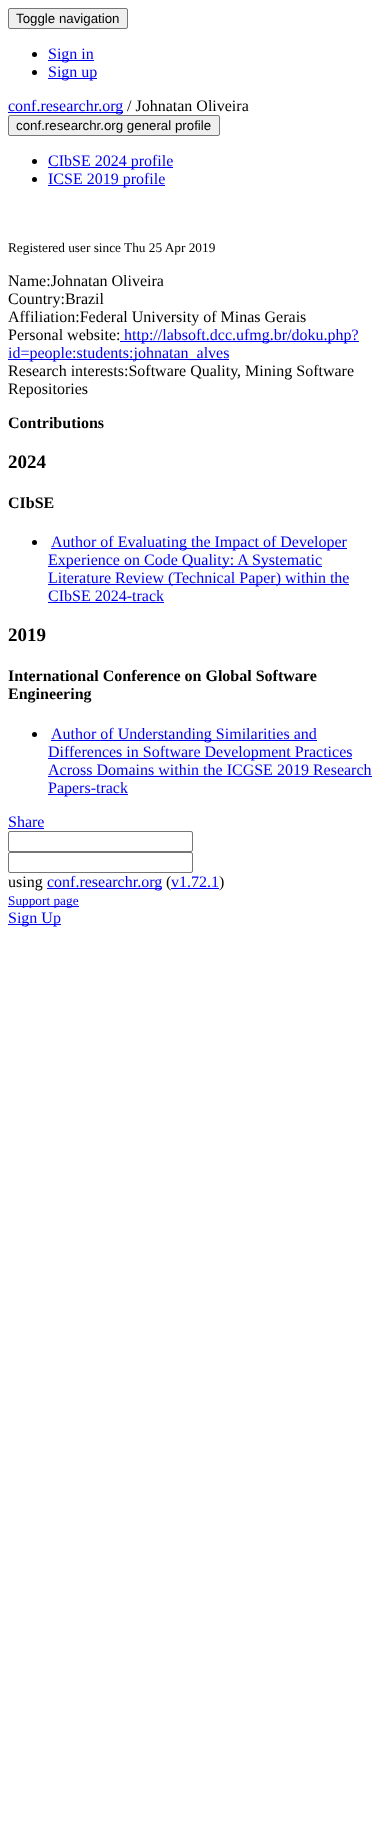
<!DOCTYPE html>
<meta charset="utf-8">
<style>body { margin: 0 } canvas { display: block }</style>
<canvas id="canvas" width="384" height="1848"></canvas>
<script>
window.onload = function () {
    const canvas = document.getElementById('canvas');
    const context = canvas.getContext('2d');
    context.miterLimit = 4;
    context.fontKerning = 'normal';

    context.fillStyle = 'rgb(255, 255, 255)';
    context.fillRect(0, 0, 384, 1848);
    context.fillStyle = 'rgb(239, 239, 239)';
    context.beginPath();
    context.roundRect(8.5, 8.5, 119, 20, 1.5);
    context.fill();
    context.strokeStyle = 'rgb(118, 118, 118)';
    context.stroke();
    context.fillStyle = 'rgb(0, 0, 0)';
    context.beginPath();
    context.arc(34.5, 54.5, 2.5, 0, 2 * Math.PI);
    context.fill();
    context.fillStyle = 'rgb(0, 0, 238)';
    context.fillRect(48, 60, 46, 1);
    context.fillStyle = 'rgb(0, 0, 0)';
    context.beginPath();
    context.arc(34.5, 72.5, 2.5, 0, 2 * Math.PI);
    context.fill();
    context.fillStyle = 'rgb(0, 0, 238)';
    context.fillRect(48, 78, 49, 1);
    context.fillRect(8, 112, 115, 1);
    context.fillStyle = 'rgb(239, 239, 239)';
    context.beginPath();
    context.roundRect(8.5, 115.5, 211, 20, 1.5);
    context.fill();
    context.stroke();
    context.fillStyle = 'rgb(0, 0, 0)';
    context.beginPath();
    context.arc(34.5, 161.5, 2.5, 0, 2 * Math.PI);
    context.fill();
    context.fillStyle = 'rgb(0, 0, 238)';
    context.fillRect(48, 167, 125, 1);
    context.fillStyle = 'rgb(0, 0, 0)';
    context.beginPath();
    context.arc(34.5, 179.5, 2.5, 0, 2 * Math.PI);
    context.fill();
    context.fillStyle = 'rgb(0, 0, 238)';
    context.fillRect(48, 185, 117, 1);
    context.fillRect(120, 341, 239, 1);
    context.fillRect(8, 359, 221, 1);
    context.fillStyle = 'rgb(0, 0, 0)';
    context.beginPath();
    context.arc(34.5, 542.5, 2.5, 0, 2 * Math.PI);
    context.fill();
    context.fillStyle = 'rgb(0, 0, 238)';
    context.fillRect(51, 548, 296, 1);
    context.fillRect(48, 566, 274, 1);
    context.fillRect(48, 584, 301, 1);
    context.fillRect(48, 602, 116, 1);
    context.fillStyle = 'rgb(0, 0, 0)';
    context.beginPath();
    context.arc(34.5, 734.5, 2.5, 0, 2 * Math.PI);
    context.fill();
    context.fillStyle = 'rgb(0, 0, 238)';
    context.fillRect(51, 740, 266, 1);
    context.fillRect(48, 758, 304, 1);
    context.fillRect(48, 776, 324, 1);
    context.fillRect(48, 794, 80, 1);
    context.fillRect(8, 828, 36, 1);
    context.beginPath();
    context.roundRect(8.5, 831.5, 184, 20, 1.5);
    context.stroke();
    context.beginPath();
    context.roundRect(8.5, 852.5, 184, 20, 1.5);
    context.stroke();
    context.fillRect(47, 888, 115, 1);
    context.fillRect(171, 888, 48, 1);
    context.fillRect(8, 906, 71, 1);
    context.fillRect(8, 924, 53, 1);
    context.font = '13.3px Liberation Sans';
    context.fillStyle = 'rgb(0, 0, 0)';
    context.fillText('Toggle navigation', 16, 23);
    context.font = '16px Liberation Serif';
    context.fillStyle = 'rgb(0, 0, 238)';
    context.fillText('Sign in', 48, 59);
    context.fillText('Sign up', 48, 77);
    context.fillText('conf.researchr.org', 8, 111);
    context.fillStyle = 'rgb(0, 0, 0)';
    context.fillText('/ Johnatan Oliveira', 127, 111);
    context.font = '13.3px Liberation Sans';
    context.fillText('conf.researchr.org general profile', 16, 130);
    context.font = '16px Liberation Serif';
    context.fillStyle = 'rgb(0, 0, 238)';
    context.fillText('CIbSE 2024 profile', 48, 166);
    context.fillText('ICSE 2019 profile', 48, 184);
    context.font = '13.3px Liberation Serif';
    context.fillStyle = 'rgb(0, 0, 0)';
    context.fillText('Registered user since Thu 25 Apr 2019', 8, 252);
    context.font = '16px Liberation Serif';
    context.fillText('Name:Johnatan Oliveira', 8, 286);
    context.fillText('Country:Brazil', 8, 304);
    context.fillText('Affiliation:Federal University of Minas Gerais', 8, 322);
    context.fillText('Personal website:', 8, 340);
    context.fillStyle = 'rgb(0, 0, 238)';
    context.fillText('http://labsoft.dcc.ufmg.br/doku.php?', 124, 340);
    context.fillText('id=people:students:johnatan_alves', 8, 358);
    context.fillStyle = 'rgb(0, 0, 0)';
    context.fillText('Research interests:Software Quality, Mining Software', 8, 376);
    context.fillText('Repositories', 8, 394);
    context.font = 'bold 16px Liberation Serif';
    context.fillText('Contributions', 8, 428);
    context.font = 'bold 19px Liberation Serif';
    context.fillText('2024', 8, 468);
    context.font = 'bold 16px Liberation Serif';
    context.fillText('CIbSE', 8, 508);
    context.font = '16px Liberation Serif';
    context.fillStyle = 'rgb(0, 0, 238)';
    context.fillText('Author of Evaluating the Impact of Developer', 51, 547);
    context.fillText('Experience on Code Quality: A Systematic', 48, 565);
    context.fillText('Literature Review (Technical Paper) within the', 48, 583);
    context.fillText('CIbSE 2024-track', 48, 601);
    context.font = 'bold 19px Liberation Serif';
    context.fillStyle = 'rgb(0, 0, 0)';
    context.fillText('2019', 8, 641);
    context.font = 'bold 16px Liberation Serif';
    context.fillText('International Conference on Global Software', 8, 681);
    context.fillText('Engineering', 8, 699);
    context.font = '16px Liberation Serif';
    context.fillStyle = 'rgb(0, 0, 238)';
    context.fillText('Author of Understanding Similarities and', 51, 739);
    context.fillText('Differences in Software Development Practices', 48, 757);
    context.fillText('Across Domains within the ICGSE 2019 Research', 48, 775);
    context.fillText('Papers-track', 48, 793);
    context.fillText('Share', 8, 827);
    context.fillStyle = 'rgb(0, 0, 0)';
    context.fillText('using', 8, 887);
    context.fillStyle = 'rgb(0, 0, 238)';
    context.fillText('conf.researchr.org', 47, 887);
    context.fillStyle = 'rgb(0, 0, 0)';
    context.fillText('(', 166, 887);
    context.fillStyle = 'rgb(0, 0, 238)';
    context.fillText('v1.72.1', 171, 887);
    context.fillStyle = 'rgb(0, 0, 0)';
    context.fillText(')', 219, 887);
    context.font = '13.3px Liberation Serif';
    context.fillStyle = 'rgb(0, 0, 238)';
    context.fillText('Support page', 8, 905);
    context.font = '16px Liberation Serif';
    context.fillText('Sign Up', 8, 923);
};
</script>
